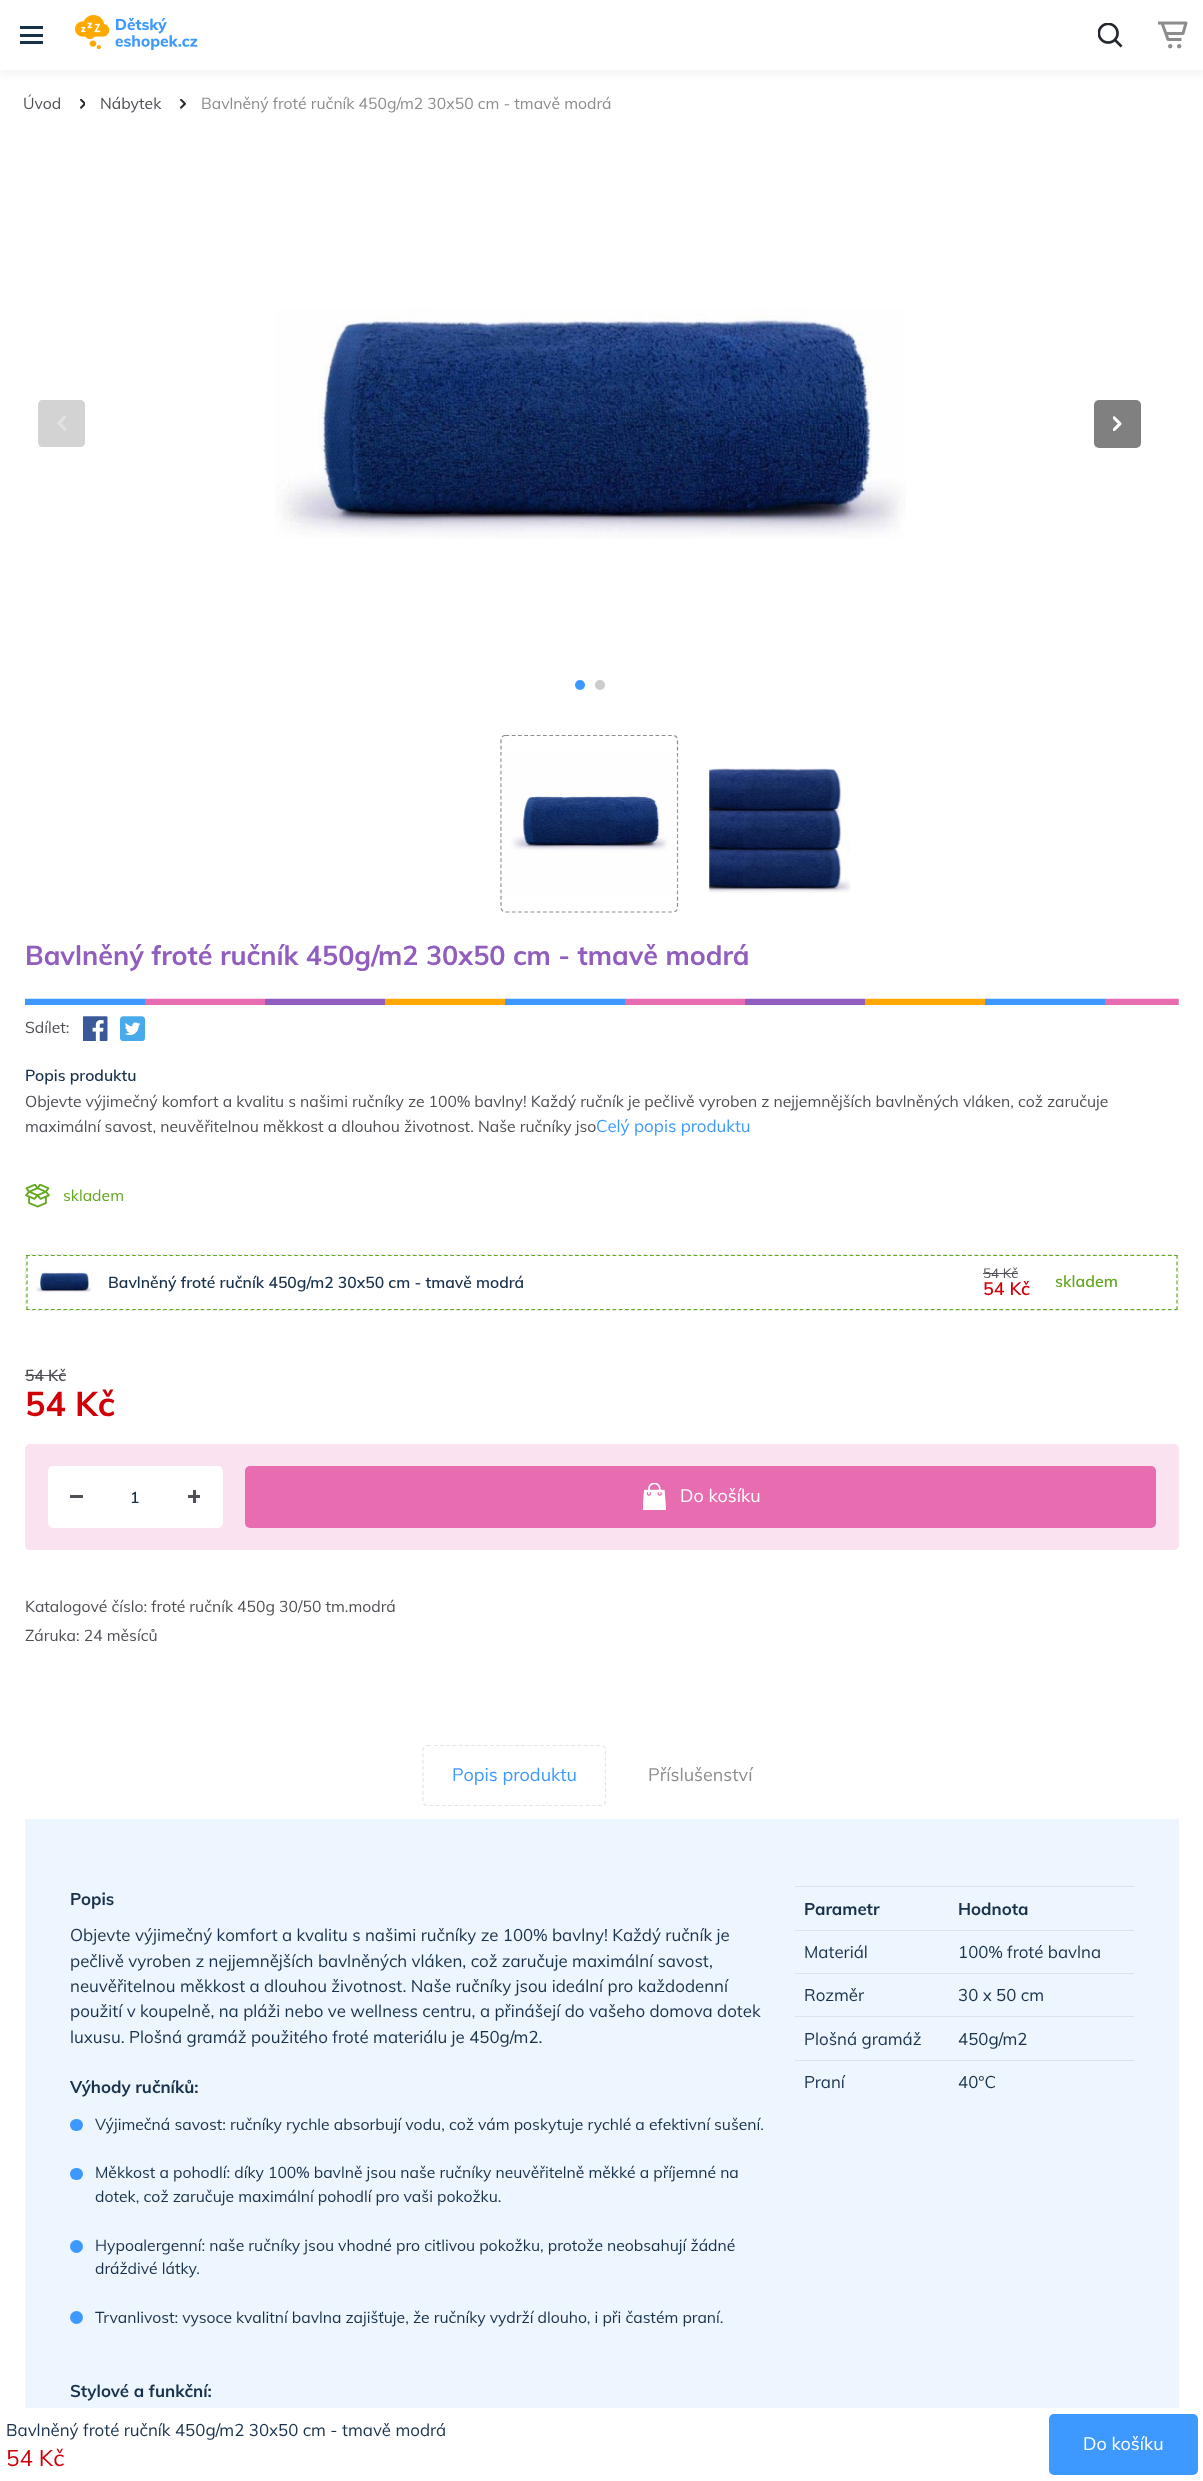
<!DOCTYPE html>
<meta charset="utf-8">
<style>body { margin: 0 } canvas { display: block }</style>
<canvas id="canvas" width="1203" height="2481"></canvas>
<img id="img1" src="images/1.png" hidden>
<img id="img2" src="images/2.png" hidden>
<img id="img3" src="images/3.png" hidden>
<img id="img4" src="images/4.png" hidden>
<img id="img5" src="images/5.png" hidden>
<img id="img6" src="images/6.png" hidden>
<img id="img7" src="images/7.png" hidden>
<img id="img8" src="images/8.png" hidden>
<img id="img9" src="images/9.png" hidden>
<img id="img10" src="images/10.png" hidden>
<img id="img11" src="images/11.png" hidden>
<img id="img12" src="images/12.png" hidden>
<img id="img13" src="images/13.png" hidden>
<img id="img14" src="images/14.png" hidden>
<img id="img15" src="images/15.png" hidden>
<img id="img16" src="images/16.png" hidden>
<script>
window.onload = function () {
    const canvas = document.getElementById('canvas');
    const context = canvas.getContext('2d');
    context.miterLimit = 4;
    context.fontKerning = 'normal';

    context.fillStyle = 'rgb(255, 255, 255)';
    context.fillRect(0, 0, 1203, 2481);
    context.fillStyle = 'rgba(0, 0, 0, 0.05)';
    context.filter = 'blur(5px)';
    context.beginPath();
    context.rect(0, 4, 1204, 70);
    context.fill();
    context.filter = 'none';
    context.fillStyle = 'rgb(255, 255, 255)';
    context.fillRect(0, 0, 1203, 70);
    context.fillStyle = 'rgb(25, 50, 76)';
    context.fillRect(20, 34, 23, 3);
    context.fillRect(20, 26, 23, 3);
    context.fillRect(20, 41, 23, 3);
    context.drawImage(document.getElementById('img1'), 75, 15, 123, 35);
    context.drawImage(document.getElementById('img2'), 1098, 23, 25, 25);
    context.drawImage(document.getElementById('img3'), 1158, 21, 30, 28);
    context.drawImage(document.getElementById('img4'), 80, 99, 5, 10);
    context.drawImage(document.getElementById('img5'), 180, 99, 6, 10);
    context.fillStyle = 'rgb(211, 211, 211)';
    context.beginPath();
    context.moveTo(80, 447);
    context.lineTo(42, 447);
    context.bezierCurveTo(40, 447, 38, 445, 38, 442);
    context.lineTo(38, 405);
    context.bezierCurveTo(38, 402, 40, 400, 42, 400);
    context.lineTo(80, 400);
    context.bezierCurveTo(83, 400, 85, 402, 85, 405);
    context.lineTo(85, 442);
    context.bezierCurveTo(85, 445, 83, 447, 80, 447);
    context.closePath();
    context.fill();
    context.drawImage(document.getElementById('img6'), 57, 416, 9, 15);
    context.drawImage(document.getElementById('img7'), 275, 308, 631, 231);
    context.fillStyle = 'rgb(128, 128, 128)';
    context.beginPath();
    context.roundRect(1094, 400, 47, 48, 5);
    context.fill();
    context.drawImage(document.getElementById('img8'), 1113, 416, 9, 15);
    context.fillStyle = 'rgb(61, 153, 255)';
    context.beginPath();
    context.arc(580, 685, 5, 0, 2 * Math.PI);
    context.fill();
    context.fillStyle = 'rgb(204, 204, 204)';
    context.beginPath();
    context.arc(600, 685, 5, 0, 2 * Math.PI);
    context.fill();
    context.save();
    context.beginPath();
    context.rect(25, 735, 1129, 178);
    context.clip();
    context.beginPath();
    context.moveTo(505.5, 735.5);
    context.lineTo(673, 735.5);
    context.bezierCurveTo(675.5, 735.5, 677.5, 737.5, 677.5, 740);
    context.lineTo(677.5, 907.5);
    context.bezierCurveTo(677.5, 910, 675.5, 912, 673, 912);
    context.lineTo(505.5, 912);
    context.bezierCurveTo(503, 912, 501, 910, 501, 907.5);
    context.lineTo(501, 740);
    context.bezierCurveTo(501, 737.5, 503, 735.5, 505.5, 735.5);
    context.closePath();
    context.strokeStyle = 'rgb(141, 141, 141)';
    context.lineWidth = 1.2;
    context.setLineDash([3.75, 2.5]);
    context.stroke();
    context.restore();
    context.drawImage(document.getElementById('img9'), 501, 753, 177, 141);
    context.drawImage(document.getElementById('img10'), 709, 767, 142, 126);
    context.drawImage(document.getElementById('img11'), 25, 998, 1154, 7);
    context.drawImage(document.getElementById('img12'), 83, 1016, 25, 25);
    context.drawImage(document.getElementById('img13'), 120, 1016, 25, 25);
    context.drawImage(document.getElementById('img14'), 25, 1184, 25, 24);
    context.fillStyle = 'rgb(237, 245, 254)';
    context.fillRect(25, 1254, 1154, 64);
    context.fillStyle = 'rgb(255, 255, 255)';
    context.beginPath();
    context.roundRect(25, 1254, 1154, 64, 2.5);
    context.fill();
    context.beginPath();
    context.moveTo(30, 1254.5);
    context.lineTo(1174, 1254.5);
    context.bezierCurveTo(1176, 1254.5, 1178, 1256.5, 1178, 1259);
    context.lineTo(1178, 1306);
    context.bezierCurveTo(1178, 1308.5, 1176, 1310.5, 1174, 1310.5);
    context.lineTo(30, 1310.5);
    context.bezierCurveTo(27.5, 1310.5, 25.5, 1308.5, 25.5, 1306);
    context.lineTo(25.5, 1259);
    context.bezierCurveTo(25.5, 1256.5, 27.5, 1254.5, 30, 1254.5);
    context.closePath();
    context.strokeStyle = 'rgb(229, 229, 229)';
    context.lineWidth = 1.2;
    context.setLineDash([3.75, 2.5]);
    context.stroke();
    context.fillRect(26, 1255, 1152, 55);
    context.beginPath();
    context.moveTo(26, 1255.5);
    context.lineTo(1177.5, 1255.5);
    context.strokeStyle = 'rgb(100, 168, 32)';
    context.setLineDash([3.75, 2.49]);
    context.stroke();
    context.beginPath();
    context.moveTo(1177, 1255);
    context.lineTo(1177, 1310);
    context.setLineDash([3.75, 2.65]);
    context.stroke();
    context.beginPath();
    context.moveTo(26, 1309.5);
    context.lineTo(1177.5, 1309.5);
    context.setLineDash([3.75, 2.49]);
    context.stroke();
    context.beginPath();
    context.moveTo(27, 1255);
    context.lineTo(27, 1310);
    context.setLineDash([3.75, 2.65]);
    context.stroke();
    context.drawImage(document.getElementById('img15'), 35, 1271, 58, 22);
    context.fillStyle = 'rgb(78, 80, 85)';
    context.fillRect(983, 1273, 35, 1);
    context.fillRect(25, 1375, 41, 1);
    context.fillStyle = 'rgb(251, 226, 240)';
    context.beginPath();
    context.roundRect(25, 1444, 1154, 106, 5);
    context.fill();
    context.fillStyle = 'rgb(255, 255, 255)';
    context.beginPath();
    context.roundRect(48, 1466, 175, 62, 5);
    context.fill();
    context.fillStyle = 'rgb(78, 80, 85)';
    context.fillRect(70, 1495, 13, 3);
    context.fillRect(188, 1495, 12, 3);
    context.fillRect(193, 1490, 3, 13);
    context.fillStyle = 'rgb(231, 108, 176)';
    context.beginPath();
    context.roundRect(245, 1466, 911, 62, 5);
    context.fill();
    context.drawImage(document.getElementById('img16'), 643, 1483, 23, 27);
    context.beginPath();
    context.moveTo(427.5, 1745.5);
    context.lineTo(601, 1745.5);
    context.bezierCurveTo(603.5, 1745.5, 605.5, 1747.5, 605.5, 1750);
    context.lineTo(605.5, 1801);
    context.bezierCurveTo(605.5, 1803.5, 603.5, 1805.5, 601, 1805.5);
    context.lineTo(427.5, 1805.5);
    context.bezierCurveTo(425, 1805.5, 423, 1803.5, 423, 1801);
    context.lineTo(423, 1750);
    context.bezierCurveTo(423, 1747.5, 425, 1745.5, 427.5, 1745.5);
    context.closePath();
    context.strokeStyle = 'rgb(229, 229, 229)';
    context.setLineDash([3.75, 2.5]);
    context.stroke();
    context.fillStyle = 'rgb(237, 245, 254)';
    context.fillRect(25, 1819, 1154, 589);
    context.fillStyle = 'rgb(61, 153, 255)';
    context.beginPath();
    context.roundRect(70, 2119, 13, 12, 6);
    context.fill();
    context.beginPath();
    context.roundRect(70, 2168, 13, 12, 6);
    context.fill();
    context.beginPath();
    context.arc(76.5, 2246.5, 6.5, 0, 2 * Math.PI);
    context.fill();
    context.beginPath();
    context.arc(76.5, 2317.5, 6.5, 0, 2 * Math.PI);
    context.fill();
    context.fillStyle = 'rgb(222, 226, 230)';
    context.fillRect(795, 1886, 339, 1);
    context.fillRect(795, 1930, 339, 1);
    context.fillRect(795, 1973, 339, 1);
    context.fillRect(795, 2016, 339, 1);
    context.fillRect(795, 2060, 339, 1);
    context.fillStyle = 'rgb(61, 153, 255)';
    context.beginPath();
    context.roundRect(1049, 2414, 149, 61, 5);
    context.fill();
    context.font = '15.75px Muli';
    context.fillStyle = 'rgb(78, 80, 85)';
    context.fillText('Úvod', 23, 109);
    context.fillText('Nábytek', 100, 109);
    context.fillStyle = 'rgb(141, 141, 141)';
    context.fillText('Bavlněný froté ručník 450g/m2 30x50 cm - tmavě modrá', 201, 109);
    context.font = 'bold 27px Muli';
    context.fillStyle = 'rgb(145, 93, 191)';
    context.fillText('Bavlněný froté ručník 450g/m2 30x50 cm - tmavě modrá', 25, 965);
    context.font = '15.75px Muli';
    context.fillStyle = 'rgb(78, 80, 85)';
    context.fillText('Sdílet:', 25, 1033);
    context.font = '600 15.75px Muli';
    context.fillStyle = 'rgb(25, 50, 76)';
    context.fillText('Popis produktu', 25, 1081);
    context.font = '15.75px Muli';
    context.fillStyle = 'rgb(78, 80, 85)';
    context.fillText('Objevte výjimečný komfort a kvalitu s našimi ručníky ze 100% bavlny! Každý ručník je pečlivě vyroben z nejjemnějších bavlněných vláken, což zaručuje', 25, 1107);
    context.fillText('maximální savost, neuvěřitelnou měkkost a dlouhou životnost. Naše ručníky jso', 25, 1132);
    context.font = '16.9px Muli';
    context.fillStyle = 'rgb(61, 153, 255)';
    context.fillText('Celý popis produktu', 596, 1132);
    context.font = '15.75px Muli';
    context.fillStyle = 'rgb(100, 168, 32)';
    context.fillText('skladem', 63, 1201);
    context.font = '600 15.75px Muli';
    context.fillStyle = 'rgb(25, 50, 76)';
    context.fillText('Bavlněný froté ručník 450g/m2 30x50 cm - tmavě modrá', 108, 1288);
    context.font = '13.5px Muli';
    context.fillStyle = 'rgb(78, 80, 85)';
    context.fillText('54 Kč', 983, 1278);
    context.font = '600 18px Muli';
    context.fillStyle = 'rgb(208, 1, 9)';
    context.fillText('54 Kč', 983, 1295);
    context.font = '600 16px Muli';
    context.fillStyle = 'rgb(100, 168, 32)';
    context.fillText('skladem', 1055, 1287);
    context.font = '600 15.75px Muli';
    context.fillStyle = 'rgb(78, 80, 85)';
    context.fillText('54 Kč', 25, 1381);
    context.font = 'bold 34px Muli';
    context.fillStyle = 'rgb(208, 1, 9)';
    context.fillText('54 Kč', 25, 1416);
    context.font = '600 15.75px Muli';
    context.fillStyle = 'rgb(25, 50, 76)';
    context.fillText('1', 130, 1503);
    context.font = '18px Muli';
    context.fillStyle = 'rgb(255, 255, 255)';
    context.fillText('Do košíku', 680, 1502);
    context.font = '15.75px Muli';
    context.fillStyle = 'rgb(78, 80, 85)';
    context.fillText('Katalogové číslo: froté ručník 450g 30/50 tm.modrá', 25, 1612);
    context.fillText('Záruka: 24 měsíců', 25, 1641);
    context.font = '18px Muli';
    context.fillStyle = 'rgb(61, 153, 255)';
    context.fillText('Popis produktu', 452, 1781);
    context.fillStyle = 'rgb(141, 141, 141)';
    context.fillText('Příslušenství', 648, 1781);
    context.font = 'bold 16.9px Muli';
    context.fillStyle = 'rgb(25, 50, 76)';
    context.fillText('Popis', 70, 1905);
    context.font = '16.9px Muli';
    context.fillText('Objevte výjimečný komfort a kvalitu s našimi ručníky ze 100% bavlny! Každý ručník je', 70, 1941);
    context.fillText('pečlivě vyroben z nejjemnějších bavlněných vláken, což zaručuje maximální savost,', 70, 1967);
    context.fillText('neuvěřitelnou měkkost a dlouhou životnost. Naše ručníky jsou ideální pro každodenní', 70, 1992);
    context.fillText('použití v koupelně, na pláži nebo ve wellness centru, a přinášejí do vašeho domova dotek', 70, 2017);
    context.fillText('luxusu. Plošná gramáž použitého froté materiálu je 450g/m2.', 70, 2043);
    context.font = 'bold 16.9px Muli';
    context.fillText('Výhody ručníků:', 70, 2093);
    context.font = '15.75px Muli';
    context.fillText('Výjimečná savost: ručníky rychle absorbují vodu, což vám poskytuje rychlé a efektivní sušení.', 95, 2130);
    context.fillText('Měkkost a pohodlí: díky 100% bavlně jsou naše ručníky neuvěřitelně měkké a příjemné na', 95, 2178);
    context.fillText('dotek, což zaručuje maximální pohodlí pro vaši pokožku.', 95, 2202);
    context.fillText('Hypoalergenní: naše ručníky jsou vhodné pro citlivou pokožku, protože neobsahují žádné', 95, 2251);
    context.fillText('dráždivé látky.', 95, 2274);
    context.fillText('Trvanlivost: vysoce kvalitní bavlna zajišťuje, že ručníky vydrží dlouho, i při častém praní.', 95, 2323);
    context.font = 'bold 16.9px Muli';
    context.fillText('Stylové a funkční:', 70, 2397);
    context.fillText('Parametr', 804, 1915);
    context.fillText('Hodnota', 958, 1915);
    context.font = '16.9px Muli';
    context.fillText('Materiál', 804, 1958);
    context.fillText('100% froté bavlna', 958, 1958);
    context.fillText('Rozměr', 804, 2001);
    context.fillText('30 x 50 cm', 958, 2001);
    context.fillText('Plošná gramáž', 804, 2045);
    context.fillText('450g/m2', 958, 2045);
    context.fillText('Praní', 804, 2088);
    context.fillText('40°C', 958, 2088);
    context.fillText('Bavlněný froté ručník 450g/m2 30x50 cm - tmavě modrá', 6, 2436);
    context.font = '22.5px Muli';
    context.fillStyle = 'rgb(208, 1, 9)';
    context.fillText('54 Kč', 6, 2466);
    context.font = '18px Muli';
    context.fillStyle = 'rgb(255, 255, 255)';
    context.fillText('Do košíku', 1083, 2450);
};
</script>
